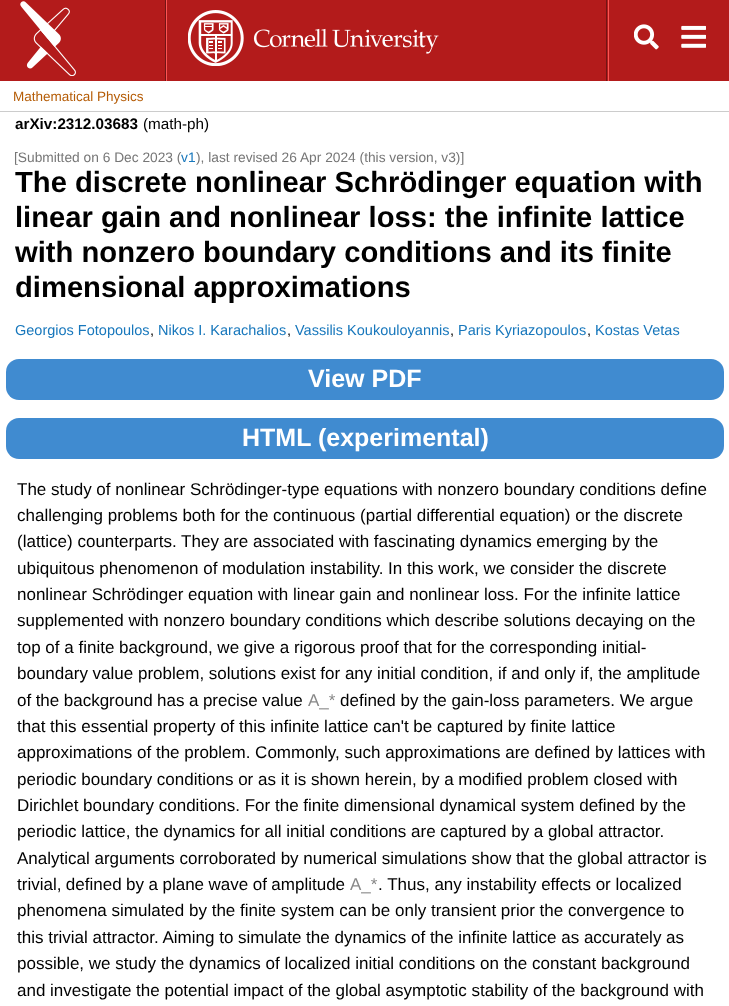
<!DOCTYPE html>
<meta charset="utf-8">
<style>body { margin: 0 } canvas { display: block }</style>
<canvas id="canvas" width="729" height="1006"></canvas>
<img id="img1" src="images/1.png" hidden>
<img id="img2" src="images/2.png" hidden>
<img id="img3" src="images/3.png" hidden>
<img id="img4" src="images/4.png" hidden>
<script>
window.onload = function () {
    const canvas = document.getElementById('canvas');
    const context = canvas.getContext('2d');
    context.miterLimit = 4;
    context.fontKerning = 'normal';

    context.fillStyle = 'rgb(255, 255, 255)';
    context.fillRect(0, 0, 729, 1006);
    context.fillStyle = 'rgb(179, 27, 27)';
    context.fillRect(0, 0, 729, 81);
    context.fillStyle = 'rgb(115, 21, 21)';
    context.fillRect(165, 0, 1, 81);
    context.drawImage(document.getElementById('img1'), 20, 1, 56, 75);
    context.fillRect(606, 0, 1, 81);
    context.fillStyle = 'rgb(252, 85, 84)';
    context.fillRect(166, 0, 1, 81);
    context.drawImage(document.getElementById('img2'), 188, 10, 251, 56);
    context.fillRect(608, 0, 1, 81);
    context.drawImage(document.getElementById('img3'), 634, 24, 25, 26);
    context.drawImage(document.getElementById('img4'), 681, 25, 25, 23);
    context.fillStyle = 'rgb(204, 204, 204)';
    context.fillRect(0, 111, 729, 1);
    context.fillStyle = 'rgb(64, 139, 208)';
    context.beginPath();
    context.roundRect(6, 359, 718, 41, 13);
    context.fill();
    context.beginPath();
    context.roundRect(6, 418, 718, 41, 13);
    context.fill();
    context.font = '13.5px Liberation Sans';
    context.fillStyle = 'rgb(181, 92, 6)';
    context.fillText('Mathematical Physics', 13, 101);
    context.font = 'bold 15.25px Liberation Sans';
    context.fillStyle = 'rgb(0, 0, 0)';
    context.fillText('arXiv:2312.03683', 15, 129);
    context.font = '15.25px Liberation Sans';
    context.fillText('(math-ph)', 143, 129);
    context.font = '13.75px Liberation Sans';
    context.fillStyle = 'rgb(118, 118, 118)';
    context.fillText('[Submitted on 6 Dec 2023 (', 14, 162);
    context.fillStyle = 'rgb(23, 119, 188)';
    context.fillText('v1', 181, 162);
    context.fillStyle = 'rgb(118, 118, 118)';
    context.fillText('), last revised 26 Apr 2024 (this version, v3)]', 196, 162);
    context.font = 'bold 29.2px Liberation Sans';
    context.fillStyle = 'rgb(0, 0, 0)';
    context.fillText('The discrete nonlinear Schrödinger equation with', 15, 192);
    context.fillText('linear gain and nonlinear loss: the infinite lattice', 15, 227);
    context.fillText('with nonzero boundary conditions and its finite', 15, 262);
    context.fillText('dimensional approximations', 15, 297);
    context.font = '14.5px Liberation Sans';
    context.fillStyle = 'rgb(23, 119, 188)';
    context.fillText('Georgios Fotopoulos', 15, 335);
    context.fillStyle = 'rgb(0, 0, 0)';
    context.fillText(',', 150, 335);
    context.fillStyle = 'rgb(23, 119, 188)';
    context.fillText('Nikos I. Karachalios', 158, 335);
    context.fillStyle = 'rgb(0, 0, 0)';
    context.fillText(',', 287, 335);
    context.fillStyle = 'rgb(23, 119, 188)';
    context.fillText('Vassilis Koukouloyannis', 295, 335);
    context.fillStyle = 'rgb(0, 0, 0)';
    context.fillText(',', 450, 335);
    context.fillStyle = 'rgb(23, 119, 188)';
    context.fillText('Paris Kyriazopoulos', 458, 335);
    context.fillStyle = 'rgb(0, 0, 0)';
    context.fillText(',', 587, 335);
    context.fillStyle = 'rgb(23, 119, 188)';
    context.fillText('Kostas Vetas', 595, 335);
    context.font = 'bold 25px Liberation Sans';
    context.fillStyle = 'rgb(255, 255, 255)';
    context.fillText('View PDF', 308, 387);
    context.fillText('HTML (experimental)', 242, 446);
    context.font = '17px Liberation Sans';
    context.fillStyle = 'rgb(0, 0, 0)';
    context.fillText('The study of nonlinear Schrödinger-type equations with nonzero boundary conditions define', 17, 495);
    context.fillText('challenging problems both for the continuous (partial differential equation) or the discrete', 17, 521);
    context.fillText('(lattice) counterparts. They are associated with fascinating dynamics emerging by the', 17, 547);
    context.fillText('ubiquitous phenomenon of modulation instability. In this work, we consider the discrete', 17, 574);
    context.fillText('nonlinear Schrödinger equation with linear gain and nonlinear loss. For the infinite lattice', 17, 600);
    context.fillText('supplemented with nonzero boundary conditions which describe solutions decaying on the', 17, 626);
    context.fillText('top of a finite background, we give a rigorous proof that for the corresponding initial-', 17, 653);
    context.fillText('boundary value problem, solutions exist for any initial condition, if and only if, the amplitude', 17, 679);
    context.wordSpacing = '-0.25px';
    context.fillText('of the background has a precise value', 17, 706);
    context.wordSpacing = '0px';
    context.fillStyle = 'rgb(136, 136, 136)';
    context.fillText('A_*', 308, 706);
    context.fillStyle = 'rgb(0, 0, 0)';
    context.fillText('defined by the gain-loss parameters. We argue', 340, 706);
    context.fillText('that this essential property of this infinite lattice can\'t be captured by finite lattice', 17, 732);
    context.fillText('approximations of the problem. Commonly, such approximations are defined by lattices with', 17, 758);
    context.fillText('periodic boundary conditions or as it is shown herein, by a modified problem closed with', 17, 785);
    context.fillText('Dirichlet boundary conditions. For the finite dimensional dynamical system defined by the', 17, 811);
    context.fillText('periodic lattice, the dynamics for all initial conditions are captured by a global attractor.', 17, 837);
    context.fillText('Analytical arguments corroborated by numerical simulations show that the global attractor is', 17, 864);
    context.wordSpacing = '-0.25px';
    context.fillText('trivial, defined by a plane wave of amplitude', 17, 890);
    context.wordSpacing = '0px';
    context.fillStyle = 'rgb(136, 136, 136)';
    context.fillText('A_*', 350, 890);
    context.fillStyle = 'rgb(0, 0, 0)';
    context.fillText('. Thus, any instability effects or localized', 378, 890);
    context.fillText('phenomena simulated by the finite system can be only transient prior the convergence to', 17, 916);
    context.fillText('this trivial attractor. Aiming to simulate the dynamics of the infinite lattice as accurately as', 17, 943);
    context.fillText('possible, we study the dynamics of localized initial conditions on the constant background', 17, 969);
    context.fillText('and investigate the potential impact of the global asymptotic stability of the background with', 17, 996);
};
</script>
